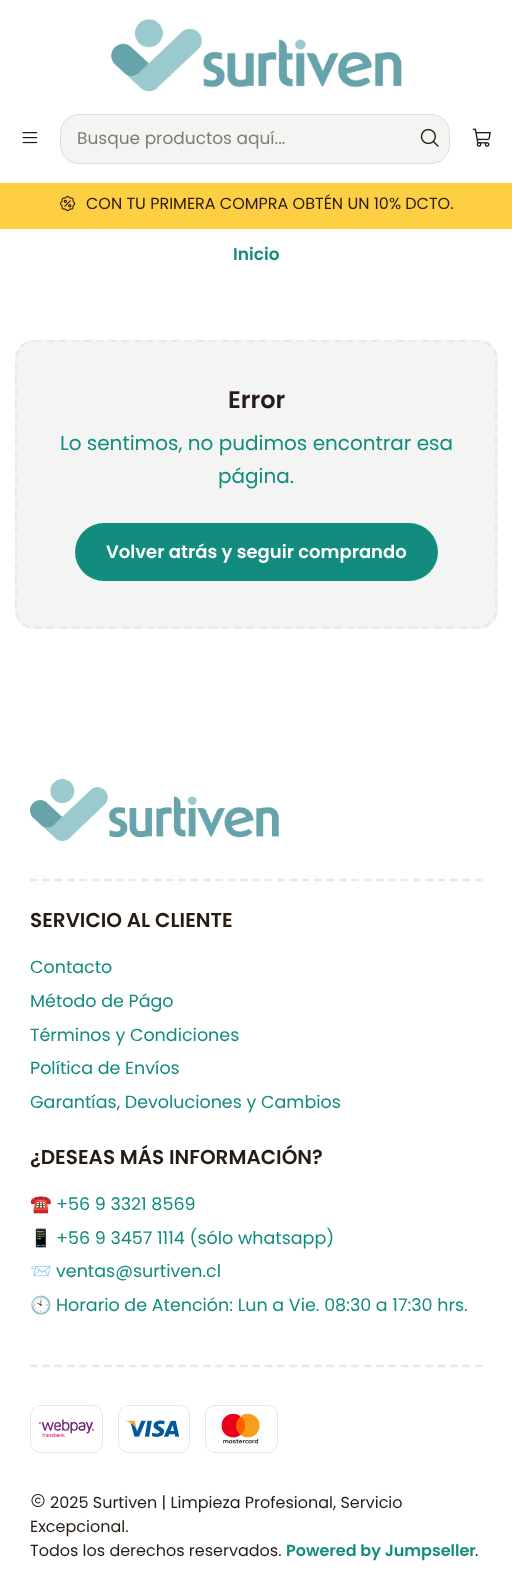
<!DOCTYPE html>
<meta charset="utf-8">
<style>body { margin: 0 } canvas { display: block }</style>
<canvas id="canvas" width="512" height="1578"></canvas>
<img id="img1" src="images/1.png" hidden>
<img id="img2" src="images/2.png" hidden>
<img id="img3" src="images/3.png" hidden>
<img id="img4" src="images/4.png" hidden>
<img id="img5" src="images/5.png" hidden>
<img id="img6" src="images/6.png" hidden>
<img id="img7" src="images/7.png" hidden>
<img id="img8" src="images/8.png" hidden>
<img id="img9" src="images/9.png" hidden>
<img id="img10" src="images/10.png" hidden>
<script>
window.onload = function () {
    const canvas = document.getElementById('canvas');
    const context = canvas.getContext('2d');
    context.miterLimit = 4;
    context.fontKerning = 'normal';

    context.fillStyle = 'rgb(255, 255, 255)';
    context.fillRect(0, 0, 512, 1578);
    context.drawImage(document.getElementById('img1'), 111, 18, 291, 74);
    context.drawImage(document.getElementById('img2'), 22, 132, 16, 12);
    context.fillStyle = 'rgb(244, 244, 243)';
    context.beginPath();
    context.roundRect(60, 114, 390, 50, 19);
    context.fill();
    context.beginPath();
    context.roundRect(60.5, 114.5, 389, 49, 18.5);
    context.strokeStyle = 'rgba(38, 28, 21, 0.1)';
    context.stroke();
    context.drawImage(document.getElementById('img3'), 420, 128, 19, 19);
    context.drawImage(document.getElementById('img4'), 472, 128, 19, 19);
    context.fillStyle = 'rgb(255, 207, 67)';
    context.fillRect(0, 183, 512, 46);
    context.drawImage(document.getElementById('img5'), 59, 195, 17, 17);
    context.fillStyle = 'rgb(245, 244, 244)';
    context.beginPath();
    context.roundRect(15, 340, 483, 289, 19);
    context.fill();
    context.beginPath();
    context.moveTo(34, 341);
    context.lineTo(479, 341);
    context.bezierCurveTo(488.5, 341, 496, 349, 496, 359);
    context.lineTo(496, 610);
    context.bezierCurveTo(496, 619.5, 488.5, 627.5, 479, 627.5);
    context.lineTo(34, 627.5);
    context.bezierCurveTo(24, 627.5, 16, 619.5, 16, 610);
    context.lineTo(16, 359);
    context.bezierCurveTo(16, 349, 24, 341, 34, 341);
    context.closePath();
    context.strokeStyle = 'rgba(38, 28, 21, 0.05)';
    context.lineWidth = 2.5;
    context.setLineDash([7.5, 5]);
    context.stroke();
    context.fillStyle = 'rgb(18, 140, 126)';
    context.beginPath();
    context.roundRect(75, 523, 363, 58, 29);
    context.fill();
    context.drawImage(document.getElementById('img6'), 30, 778, 249, 63);
    context.beginPath();
    context.moveTo(30, 880);
    context.lineTo(482.5, 880);
    context.strokeStyle = 'rgb(233, 232, 232)';
    context.setLineDash([7.5, 4.86]);
    context.stroke();
    context.beginPath();
    context.moveTo(30, 1366);
    context.lineTo(482.5, 1366);
    context.stroke();
    context.beginPath();
    context.roundRect(30.5, 1405.5, 72, 47, 9.5);
    context.lineWidth = 1;
    context.setLineDash([]);
    context.stroke();
    context.drawImage(document.getElementById('img7'), 39, 1419, 55, 19);
    context.beginPath();
    context.roundRect(118.5, 1405.5, 71, 47, 9.5);
    context.stroke();
    context.drawImage(document.getElementById('img8'), 126, 1420, 54, 17);
    context.beginPath();
    context.roundRect(205.5, 1405.5, 72, 47, 9.5);
    context.stroke();
    context.drawImage(document.getElementById('img9'), 221, 1413, 39, 31);
    context.drawImage(document.getElementById('img10'), 31, 1494, 14, 13);
    context.font = '17px Poppins';
    context.fillStyle = 'rgb(129, 123, 118)';
    context.fillText('Busque productos aquí...', 77, 144);
    context.font = '16px Poppins';
    context.fillStyle = 'rgb(38, 28, 21)';
    context.fillText('CON TU PRIMERA COMPRA OBTÉN UN 10% DCTO.', 86, 209);
    context.font = '600 17px Poppins';
    context.fillStyle = 'rgb(18, 140, 126)';
    context.fillText('Inicio', 233, 260);
    context.font = '600 24px Poppins';
    context.fillStyle = 'rgb(38, 28, 21)';
    context.fillText('Error', 228, 408);
    context.font = '20px Poppins';
    context.fillStyle = 'rgb(18, 140, 126)';
    context.fillText('Lo sentimos, no pudimos encontrar esa', 60, 450);
    context.fillText('página.', 218, 483);
    context.font = '600 18px Poppins';
    context.fillStyle = 'rgb(255, 255, 255)';
    context.fillText('Volver atrás y seguir comprando', 106, 558);
    context.font = '600 20px Poppins';
    context.fillStyle = 'rgb(38, 28, 21)';
    context.fillText('SERVICIO AL CLIENTE', 30, 927);
    context.font = '17.5px Poppins';
    context.fillStyle = 'rgb(18, 140, 126)';
    context.fillText('Contacto', 30, 973);
    context.fillText('Método de Págo', 30, 1007);
    context.fillText('Términos y Condiciones', 30, 1041);
    context.fillText('Política de Envíos', 30, 1074);
    context.fillText('Garantías, Devoluciones y Cambios', 30, 1108);
    context.font = '600 20px Poppins';
    context.fillStyle = 'rgb(38, 28, 21)';
    context.fillText('¿DESEAS MÁS INFORMACIÓN?', 30, 1164);
    context.font = '17.5px Noto Color Emoji';
    context.fillStyle = 'rgb(18, 140, 126)';
    context.fillText('☎️', 30, 1210);
    context.font = '17.5px Poppins';
    context.fillText('+56 9 3321 8569', 56, 1210);
    context.font = '17.5px Noto Color Emoji';
    context.fillText('📱', 30, 1244);
    context.font = '17.5px Poppins';
    context.fillText('+56 9 3457 1114 (sólo whatsapp)', 56, 1244);
    context.font = '17.5px Noto Color Emoji';
    context.fillText('📨', 30, 1277);
    context.font = '17.5px Poppins';
    context.fillText('ventas@surtiven.cl', 56, 1277);
    context.font = '17.5px Noto Color Emoji';
    context.fillText('🕙', 30, 1311);
    context.font = '17.5px Poppins';
    context.fillText('Horario de Atención: Lun a Vie. 08:30 a 17:30 hrs.', 56, 1311);
    context.font = '16px Poppins';
    context.fillStyle = 'rgb(38, 28, 21)';
    context.fillText('2025 Surtiven | Limpieza Profesional, Servicio', 50, 1508);
    context.fillText('Excepcional.', 30, 1532);
    context.fillText('Todos los derechos reservados.', 30, 1556);
    context.font = '600 16px Poppins';
    context.fillStyle = 'rgb(18, 140, 126)';
    context.fillText('Powered by Jumpseller', 286, 1556);
    context.font = '16px Poppins';
    context.fillStyle = 'rgb(38, 28, 21)';
    context.fillText('.', 475, 1556);
};
</script>
